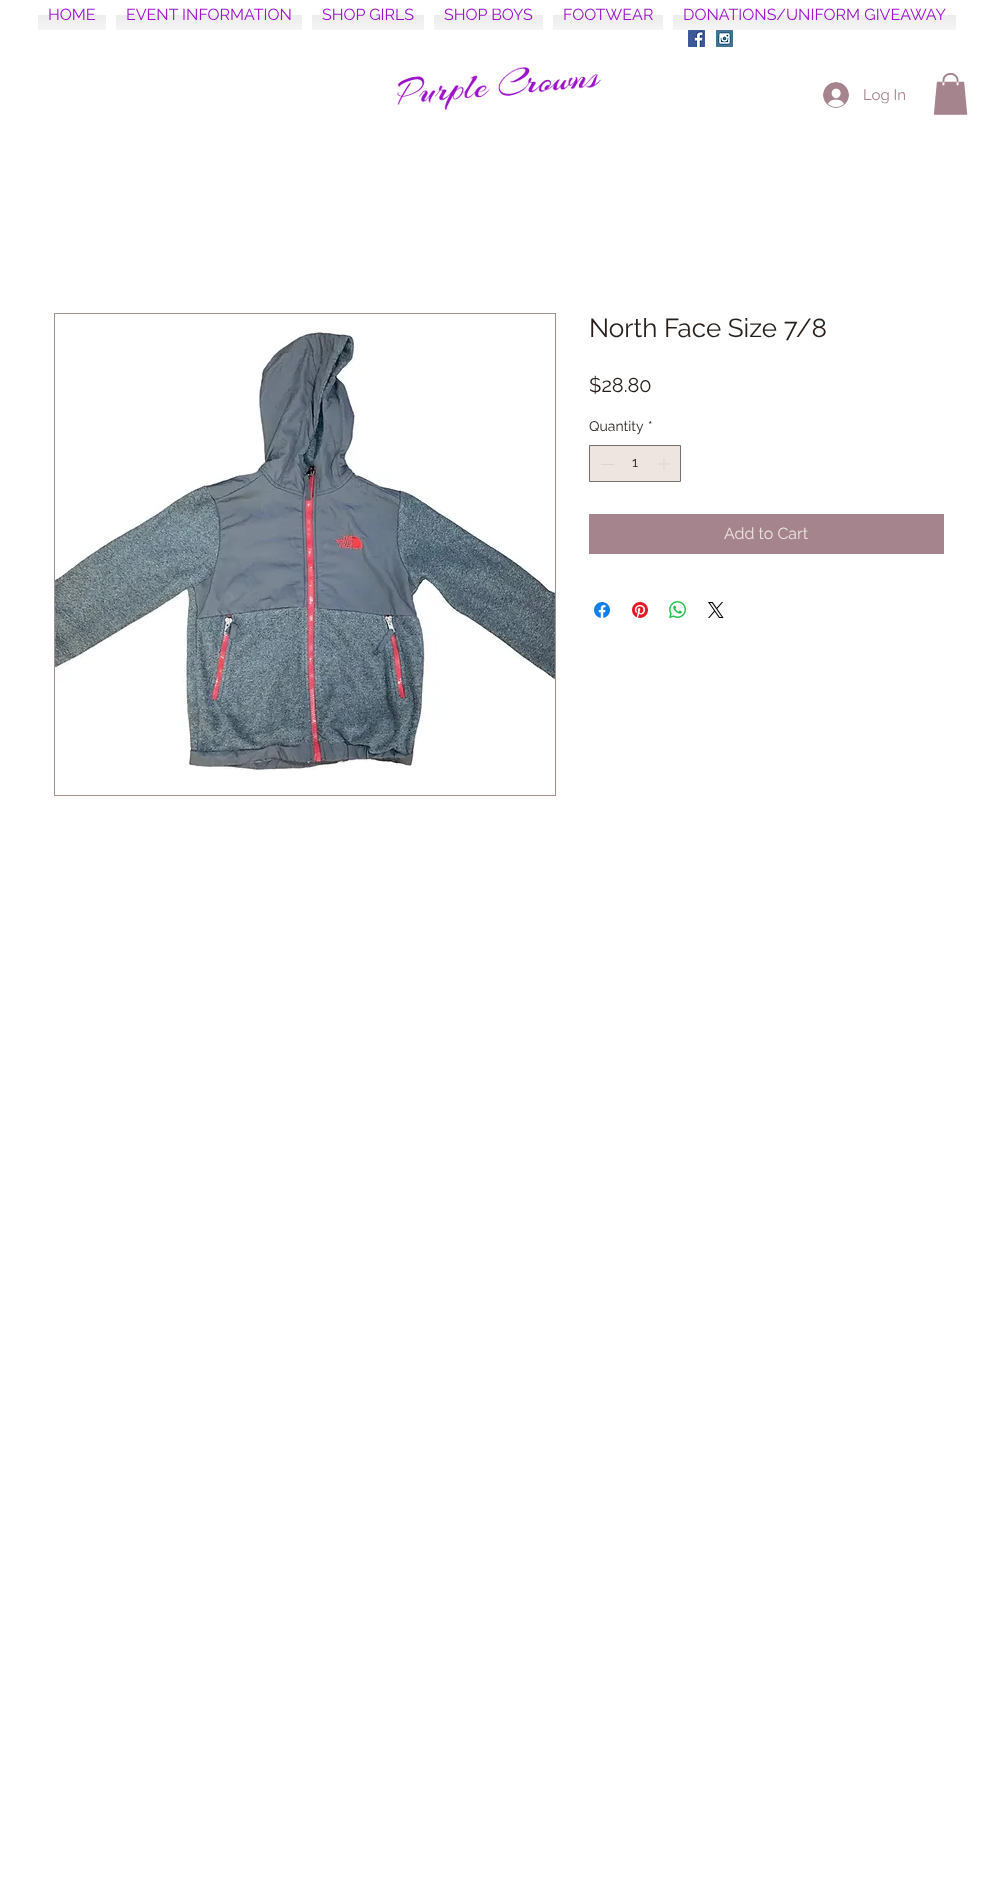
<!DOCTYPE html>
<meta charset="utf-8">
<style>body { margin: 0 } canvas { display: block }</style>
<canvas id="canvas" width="998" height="1899"></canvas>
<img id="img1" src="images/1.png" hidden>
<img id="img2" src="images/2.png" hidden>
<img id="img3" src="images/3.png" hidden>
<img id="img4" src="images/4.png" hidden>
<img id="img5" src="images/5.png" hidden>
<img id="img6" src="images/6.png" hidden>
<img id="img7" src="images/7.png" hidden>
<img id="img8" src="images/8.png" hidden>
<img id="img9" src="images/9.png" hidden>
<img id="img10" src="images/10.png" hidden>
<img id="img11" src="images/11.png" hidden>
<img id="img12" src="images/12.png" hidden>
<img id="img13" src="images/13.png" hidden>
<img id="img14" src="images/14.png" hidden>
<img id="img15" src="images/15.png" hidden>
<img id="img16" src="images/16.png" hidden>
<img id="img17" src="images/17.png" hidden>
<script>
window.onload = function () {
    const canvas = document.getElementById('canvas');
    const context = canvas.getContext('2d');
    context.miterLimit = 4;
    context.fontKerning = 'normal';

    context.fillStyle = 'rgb(255, 255, 255)';
    context.fillRect(0, 0, 998, 1899);
    context.drawImage(document.getElementById('img1'), 38, 15, 68, 15);
    context.drawImage(document.getElementById('img2'), 116, 15, 186, 15);
    context.drawImage(document.getElementById('img3'), 312, 15, 112, 15);
    context.drawImage(document.getElementById('img4'), 434, 15, 109, 15);
    context.drawImage(document.getElementById('img5'), 553, 15, 110, 15);
    context.drawImage(document.getElementById('img6'), 673, 15, 283, 15);
    context.drawImage(document.getElementById('img7'), 688, 30, 17, 17);
    context.drawImage(document.getElementById('img8'), 716, 30, 17, 17);
    context.drawImage(document.getElementById('img9'), 397, 67, 205, 43);
    context.drawImage(document.getElementById('img10'), 823, 82, 26, 26);
    context.drawImage(document.getElementById('img11'), 933, 73, 35, 42);
    context.strokeStyle = 'rgb(158, 144, 138)';
    context.strokeRect(54.5, 313.5, 501, 482);
    context.drawImage(document.getElementById('img12'), 55, 330, 500, 440);
    context.fillStyle = 'rgb(238, 228, 224)';
    context.beginPath();
    context.rect(589.5, 445.5, 91, 36);
    context.fill();
    context.strokeStyle = 'rgb(117, 109, 106)';
    context.stroke();
    context.fillStyle = 'rgb(219, 214, 212)';
    context.fillRect(601, 464, 13, 1);
    context.drawImage(document.getElementById('img13'), 657, 457, 14, 14);
    context.fillStyle = 'rgb(165, 132, 141)';
    context.fillRect(589, 514, 355, 40);
    context.drawImage(document.getElementById('img14'), 594, 602, 16, 16);
    context.drawImage(document.getElementById('img15'), 632, 602, 16, 16);
    context.drawImage(document.getElementById('img16'), 669, 601, 17, 17);
    context.drawImage(document.getElementById('img17'), 708, 602, 16, 16);
    context.font = '16px Raleway';
    context.fillStyle = 'rgb(156, 18, 202)';
    context.fillText('HOME', 48, 20);
    context.fillText('EVENT INFORMATION', 126, 20);
    context.fillText('SHOP GIRLS', 322, 20);
    context.fillText('SHOP BOYS', 444, 20);
    context.fillText('FOOTWEAR', 563, 20);
    context.fillText('DONATIONS/UNIFORM GIVEAWAY', 683, 20);
    context.font = '15px Raleway';
    context.fillStyle = 'rgb(165, 132, 141)';
    context.fillText('Log In', 863, 100);
    context.font = '26px Raleway';
    context.fillStyle = 'rgb(37, 30, 27)';
    context.fillText('North Face Size 7/8', 589, 337);
    context.font = '20px Raleway';
    context.fillText('$28.80', 589, 392);
    context.font = '14px Raleway';
    context.fillText('Quantity', 589, 431);
    context.fillText('*', 648, 431);
    context.fillText('1', 632, 467);
    context.font = '16px Raleway';
    context.fillStyle = 'rgb(238, 228, 224)';
    context.fillText('Add to Cart', 724, 539);
};
</script>
